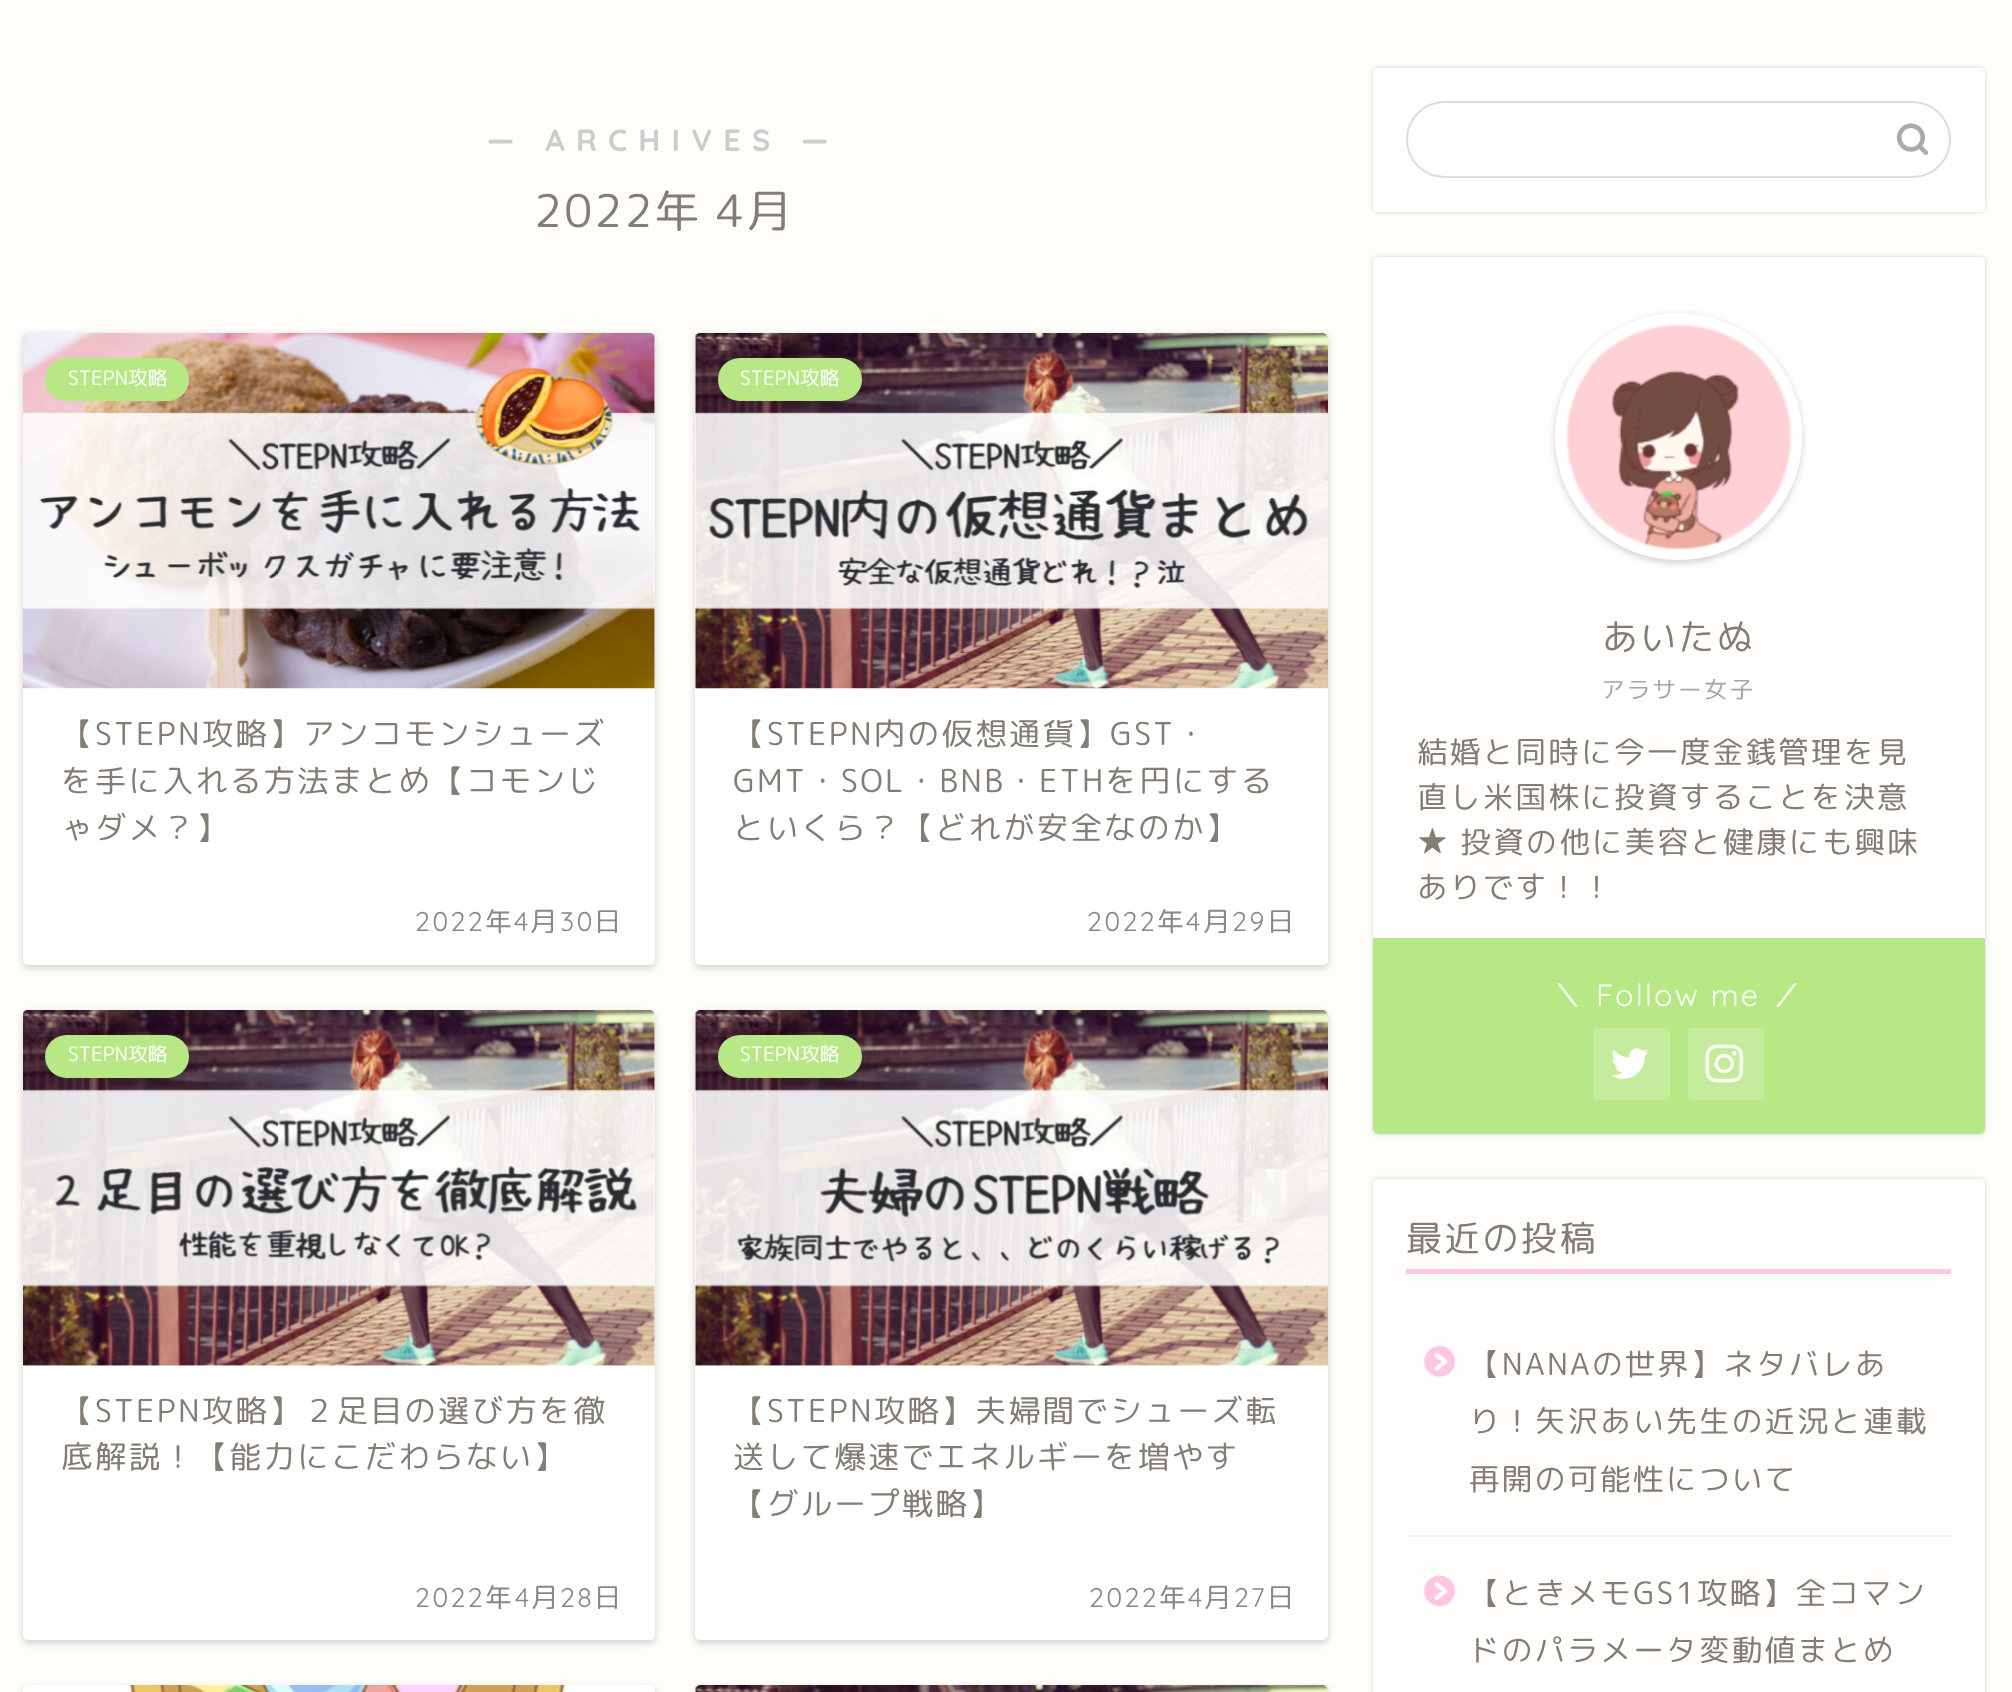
<!DOCTYPE html>
<meta charset="utf-8">
<style>body { margin: 0 } canvas { display: block }</style>
<canvas id="canvas" width="2012" height="1692"></canvas>
<img id="img1" src="images/1.png" hidden>
<img id="img2" src="images/2.png" hidden>
<img id="img3" src="images/3.png" hidden>
<img id="img4" src="images/4.png" hidden>
<img id="img5" src="images/5.png" hidden>
<img id="img6" src="images/6.png" hidden>
<img id="img7" src="images/7.png" hidden>
<img id="img8" src="images/8.png" hidden>
<img id="img9" src="images/9.png" hidden>
<img id="img10" src="images/10.png" hidden>
<img id="img11" src="images/11.png" hidden>
<img id="img12" src="images/12.png" hidden>
<script>
window.onload = function () {
    const canvas = document.getElementById('canvas');
    const context = canvas.getContext('2d');
    context.miterLimit = 4;
    context.fontKerning = 'normal';

    context.fillStyle = 'rgb(255, 253, 249)';
    context.fillRect(0, 0, 2012, 1692);
    context.fillStyle = 'rgba(0, 0, 0, 0.18)';
    context.filter = 'blur(3.5px)';
    context.beginPath();
    context.roundRect(23, 335, 632, 633, 5);
    context.fill();
    context.filter = 'none';
    context.fillStyle = 'rgb(255, 255, 255)';
    context.beginPath();
    context.roundRect(23, 333, 632, 632, 5);
    context.fill();
    context.drawImage(document.getElementById('img1'), 23, 333, 632, 356);
    context.fillStyle = 'rgb(184, 232, 134)';
    context.beginPath();
    context.roundRect(45, 358, 144, 43, 21.5);
    context.fill();
    context.fillStyle = 'rgba(0, 0, 0, 0.18)';
    context.filter = 'blur(3.5px)';
    context.beginPath();
    context.roundRect(695, 335, 633, 633, 5);
    context.fill();
    context.filter = 'none';
    context.fillStyle = 'rgb(255, 255, 255)';
    context.beginPath();
    context.roundRect(695, 333, 633, 632, 5);
    context.fill();
    context.drawImage(document.getElementById('img2'), 695, 333, 633, 356);
    context.fillStyle = 'rgb(184, 232, 134)';
    context.beginPath();
    context.roundRect(718, 358, 144, 43, 21.5);
    context.fill();
    context.fillStyle = 'rgba(0, 0, 0, 0.18)';
    context.filter = 'blur(3.5px)';
    context.beginPath();
    context.roundRect(23, 1013, 632, 630, 5);
    context.fill();
    context.filter = 'none';
    context.fillStyle = 'rgb(255, 255, 255)';
    context.beginPath();
    context.roundRect(23, 1010, 632, 630, 5);
    context.fill();
    context.drawImage(document.getElementById('img3'), 23, 1010, 632, 356);
    context.fillStyle = 'rgb(184, 232, 134)';
    context.beginPath();
    context.roundRect(45, 1035, 144, 43, 21.5);
    context.fill();
    context.fillStyle = 'rgba(0, 0, 0, 0.18)';
    context.filter = 'blur(3.5px)';
    context.beginPath();
    context.roundRect(695, 1013, 633, 630, 5);
    context.fill();
    context.filter = 'none';
    context.fillStyle = 'rgb(255, 255, 255)';
    context.beginPath();
    context.roundRect(695, 1010, 633, 630, 5);
    context.fill();
    context.drawImage(document.getElementById('img4'), 695, 1010, 633, 356);
    context.fillStyle = 'rgb(184, 232, 134)';
    context.beginPath();
    context.roundRect(718, 1035, 144, 43, 21.5);
    context.fill();
    context.fillStyle = 'rgba(0, 0, 0, 0.18)';
    context.filter = 'blur(3.5px)';
    context.beginPath();
    context.roundRect(23, 1688, 632, 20, 5);
    context.fill();
    context.filter = 'none';
    context.fillStyle = 'rgb(255, 255, 255)';
    context.beginPath();
    context.roundRect(23, 1685, 632, 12, 5);
    context.fill();
    context.drawImage(document.getElementById('img5'), 126, 1685, 440, 7);
    context.fillStyle = 'rgba(0, 0, 0, 0.18)';
    context.filter = 'blur(3.5px)';
    context.beginPath();
    context.roundRect(695, 1688, 633, 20, 5);
    context.fill();
    context.filter = 'none';
    context.fillStyle = 'rgb(255, 255, 255)';
    context.beginPath();
    context.roundRect(695, 1685, 633, 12, 5);
    context.fill();
    context.drawImage(document.getElementById('img6'), 695, 1685, 633, 7);
    context.save();
    context.beginPath();
    context.moveTo(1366, 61);
    context.lineTo(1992, 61);
    context.lineTo(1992, 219);
    context.lineTo(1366, 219);
    context.closePath();
    context.moveTo(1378, 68);
    context.lineTo(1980, 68);
    context.bezierCurveTo(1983, 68, 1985, 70, 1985, 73);
    context.lineTo(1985, 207);
    context.bezierCurveTo(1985, 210, 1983, 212, 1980, 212);
    context.lineTo(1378, 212);
    context.bezierCurveTo(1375, 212, 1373, 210, 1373, 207);
    context.lineTo(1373, 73);
    context.bezierCurveTo(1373, 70, 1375, 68, 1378, 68);
    context.closePath();
    context.clip('evenodd');
    context.fillStyle = 'rgba(0, 0, 0, 0.18)';
    context.filter = 'blur(2px)';
    context.beginPath();
    context.roundRect(1373, 68, 612, 144, 5);
    context.fill();
    context.filter = 'none';
    context.restore();
    context.fillStyle = 'rgba(255, 255, 255, 0.6)';
    context.beginPath();
    context.roundRect(1373, 68, 612, 144, 5);
    context.fill();
    context.beginPath();
    context.roundRect(1407, 102, 543, 75, 37.5);
    context.strokeStyle = 'rgb(221, 221, 221)';
    context.lineWidth = 2;
    context.stroke();
    context.drawImage(document.getElementById('img7'), 1896, 123, 33, 32);
    context.save();
    context.beginPath();
    context.moveTo(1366, 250);
    context.lineTo(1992, 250);
    context.lineTo(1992, 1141);
    context.lineTo(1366, 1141);
    context.closePath();
    context.moveTo(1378, 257);
    context.lineTo(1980, 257);
    context.bezierCurveTo(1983, 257, 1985, 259, 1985, 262);
    context.lineTo(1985, 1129);
    context.bezierCurveTo(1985, 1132, 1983, 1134, 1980, 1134);
    context.lineTo(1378, 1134);
    context.bezierCurveTo(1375, 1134, 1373, 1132, 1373, 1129);
    context.lineTo(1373, 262);
    context.bezierCurveTo(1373, 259, 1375, 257, 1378, 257);
    context.closePath();
    context.clip('evenodd');
    context.fillStyle = 'rgba(0, 0, 0, 0.18)';
    context.filter = 'blur(2px)';
    context.beginPath();
    context.roundRect(1373, 257, 612, 877, 5);
    context.fill();
    context.filter = 'none';
    context.restore();
    context.beginPath();
    context.roundRect(1373, 257, 612, 877, 5);
    context.fill();
    context.fillStyle = 'rgba(0, 0, 0, 0.18)';
    context.filter = 'blur(3.5px)';
    context.beginPath();
    context.roundRect(1555, 315, 247, 248, 123.5);
    context.fill();
    context.filter = 'none';
    context.fillStyle = 'rgb(255, 255, 255)';
    context.beginPath();
    context.arc(1678.5, 436.5, 123.5, 0, 2 * Math.PI);
    context.fill();
    context.drawImage(document.getElementById('img8'), 1560, 324, 242, 232);
    context.fillStyle = 'rgb(184, 232, 134)';
    context.beginPath();
    context.roundRect(1373, 938, 612, 196, [0, 0, 5, 5]);
    context.fill();
    context.fillStyle = 'rgb(197, 236, 156)';
    context.beginPath();
    context.roundRect(1593, 1028, 77, 72, 5);
    context.fill();
    context.drawImage(document.getElementById('img9'), 1611, 1048, 38, 31);
    context.beginPath();
    context.roundRect(1688, 1028, 76, 72, 5);
    context.fill();
    context.drawImage(document.getElementById('img10'), 1705, 1044, 39, 39);
    context.save();
    context.beginPath();
    context.moveTo(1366, 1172);
    context.lineTo(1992, 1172);
    context.lineTo(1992, 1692);
    context.lineTo(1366, 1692);
    context.closePath();
    context.moveTo(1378, 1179);
    context.lineTo(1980, 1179);
    context.bezierCurveTo(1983, 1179, 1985, 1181, 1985, 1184);
    context.lineTo(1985, 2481);
    context.bezierCurveTo(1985, 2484, 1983, 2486, 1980, 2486);
    context.lineTo(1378, 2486);
    context.bezierCurveTo(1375, 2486, 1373, 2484, 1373, 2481);
    context.lineTo(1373, 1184);
    context.bezierCurveTo(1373, 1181, 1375, 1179, 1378, 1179);
    context.closePath();
    context.clip('evenodd');
    context.fillStyle = 'rgba(0, 0, 0, 0.18)';
    context.filter = 'blur(2px)';
    context.beginPath();
    context.roundRect(1373, 1179, 612, 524, 5);
    context.fill();
    context.filter = 'none';
    context.restore();
    context.fillStyle = 'rgba(255, 255, 255, 0.6)';
    context.beginPath();
    context.roundRect(1373, 1179, 612, 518, 5);
    context.fill();
    context.fillStyle = 'rgb(255, 198, 228)';
    context.fillRect(1406, 1269, 545, 5);
    context.fillStyle = 'rgb(242, 241, 240)';
    context.fillRect(1406, 1535, 545, 2);
    context.drawImage(document.getElementById('img11'), 1424, 1346, 31, 31);
    context.drawImage(document.getElementById('img12'), 1424, 1575, 31, 32);
    context.letterSpacing = '11.25px';
    context.font = 'bold 30.6px Quicksand';
    context.fillStyle = 'rgb(204, 204, 204)';
    context.fillText('― ARCHIVES ―', 487, 151);
    context.letterSpacing = '2.25px';
    context.font = '45px "Rounded Mplus 1c"';
    context.fillStyle = 'rgb(132, 125, 118)';
    context.fillText('2022年 4月', 534, 227);
    context.letterSpacing = '0px';
    context.font = '19.75px "Rounded Mplus 1c"';
    context.fillStyle = 'rgb(255, 255, 255)';
    context.fillText('STEPN攻略', 68, 385);
    context.letterSpacing = '2.25px';
    context.font = '31.5px "Rounded Mplus 1c"';
    context.fillStyle = 'rgb(132, 125, 118)';
    context.fillText('【STEPN攻略】アンコモンシューズ', 61, 745);
    context.fillText('を手に入れる方法まとめ【コモンじ', 61, 792);
    context.fillText('ゃダメ？】', 61, 839);
    context.font = '27px Quicksand';
    context.fillStyle = 'rgb(136, 136, 136)';
    context.fillText('2022', 415, 931);
    context.font = '27px "Rounded Mplus 1c"';
    context.fillText('年', 485, 931);
    context.font = '27px Quicksand';
    context.fillText('4', 514, 931);
    context.font = '27px "Rounded Mplus 1c"';
    context.fillText('月', 530, 931);
    context.font = '27px Quicksand';
    context.fillText('30', 560, 931);
    context.font = '27px "Rounded Mplus 1c"';
    context.fillText('日', 594, 931);
    context.letterSpacing = '0px';
    context.font = '19.75px "Rounded Mplus 1c"';
    context.fillStyle = 'rgb(255, 255, 255)';
    context.fillText('STEPN攻略', 740, 385);
    context.letterSpacing = '2.25px';
    context.font = '31.5px "Rounded Mplus 1c"';
    context.fillStyle = 'rgb(132, 125, 118)';
    context.fillText('【STEPN内の仮想通貨】GST・', 733, 745);
    context.fillText('GMT・SOL・BNB・ETHを円にする', 733, 792);
    context.fillText('といくら？【どれが安全なのか】', 733, 839);
    context.font = '27px Quicksand';
    context.fillStyle = 'rgb(136, 136, 136)';
    context.fillText('2022', 1087, 931);
    context.font = '27px "Rounded Mplus 1c"';
    context.fillText('年', 1157, 931);
    context.font = '27px Quicksand';
    context.fillText('4', 1186, 931);
    context.font = '27px "Rounded Mplus 1c"';
    context.fillText('月', 1203, 931);
    context.font = '27px Quicksand';
    context.fillText('29', 1232, 931);
    context.font = '27px "Rounded Mplus 1c"';
    context.fillText('日', 1267, 931);
    context.letterSpacing = '0px';
    context.font = '19.75px "Rounded Mplus 1c"';
    context.fillStyle = 'rgb(255, 255, 255)';
    context.fillText('STEPN攻略', 68, 1061);
    context.letterSpacing = '2.25px';
    context.font = '31.5px "Rounded Mplus 1c"';
    context.fillStyle = 'rgb(132, 125, 118)';
    context.fillText('【STEPN攻略】２足目の選び方を徹', 61, 1422);
    context.fillText('底解説！【能力にこだわらない】', 61, 1468);
    context.font = '27px Quicksand';
    context.fillStyle = 'rgb(136, 136, 136)';
    context.fillText('2022', 415, 1607);
    context.font = '27px "Rounded Mplus 1c"';
    context.fillText('年', 485, 1607);
    context.font = '27px Quicksand';
    context.fillText('4', 515, 1607);
    context.font = '27px "Rounded Mplus 1c"';
    context.fillText('月', 531, 1607);
    context.font = '27px Quicksand';
    context.fillText('28', 560, 1607);
    context.font = '27px "Rounded Mplus 1c"';
    context.fillText('日', 594, 1607);
    context.letterSpacing = '0px';
    context.font = '19.75px "Rounded Mplus 1c"';
    context.fillStyle = 'rgb(255, 255, 255)';
    context.fillText('STEPN攻略', 740, 1061);
    context.letterSpacing = '2.25px';
    context.font = '31.5px "Rounded Mplus 1c"';
    context.fillStyle = 'rgb(132, 125, 118)';
    context.fillText('【STEPN攻略】夫婦間でシューズ転', 733, 1422);
    context.fillText('送して爆速でエネルギーを増やす', 733, 1468);
    context.fillText('【グループ戦略】', 733, 1515);
    context.font = '27px Quicksand';
    context.fillStyle = 'rgb(136, 136, 136)';
    context.fillText('2022', 1089, 1607);
    context.font = '27px "Rounded Mplus 1c"';
    context.fillText('年', 1159, 1607);
    context.font = '27px Quicksand';
    context.fillText('4', 1188, 1607);
    context.font = '27px "Rounded Mplus 1c"';
    context.fillText('月', 1204, 1607);
    context.font = '27px Quicksand';
    context.fillText('27', 1234, 1607);
    context.font = '27px "Rounded Mplus 1c"';
    context.fillText('日', 1267, 1607);
    context.font = '36px "Rounded Mplus 1c"';
    context.fillStyle = 'rgb(132, 125, 118)';
    context.fillText('あいたぬ', 1602, 650);
    context.font = '23.5px "Rounded Mplus 1c"';
    context.fillStyle = 'rgb(166, 165, 164)';
    context.fillText('アラサー女子', 1601, 698);
    context.font = '30.6px "Rounded Mplus 1c"';
    context.fillStyle = 'rgb(132, 125, 118)';
    context.fillText('結婚と同時に今一度金銭管理を見', 1417, 763);
    context.fillText('直し米国株に投資することを決意', 1417, 808);
    context.fillText('★ 投資の他に美容と健康にも興味', 1417, 853);
    context.fillText('ありです！！', 1417, 898);
    context.fillStyle = 'rgb(255, 255, 255)';
    context.fillText('＼', 1552, 1006);
    context.font = '30.6px Quicksand';
    context.fillText('Follow me', 1596, 1006);
    context.font = '30.6px "Rounded Mplus 1c"';
    context.fillText('／', 1771, 1006);
    context.font = '36px "Rounded Mplus 1c"';
    context.fillStyle = 'rgb(132, 125, 118)';
    context.fillText('最近の投稿', 1406, 1251);
    context.font = '30.6px "Rounded Mplus 1c"';
    context.fillText('【NANAの世界】ネタバレあ', 1469, 1375);
    context.fillText('り！矢沢あい先生の近況と連載', 1469, 1432);
    context.fillText('再開の可能性について', 1469, 1490);
    context.fillText('【ときメモGS1攻略】全コマン', 1469, 1604);
    context.fillText('ドのパラメータ変動値まとめ', 1469, 1661);
};
</script>
